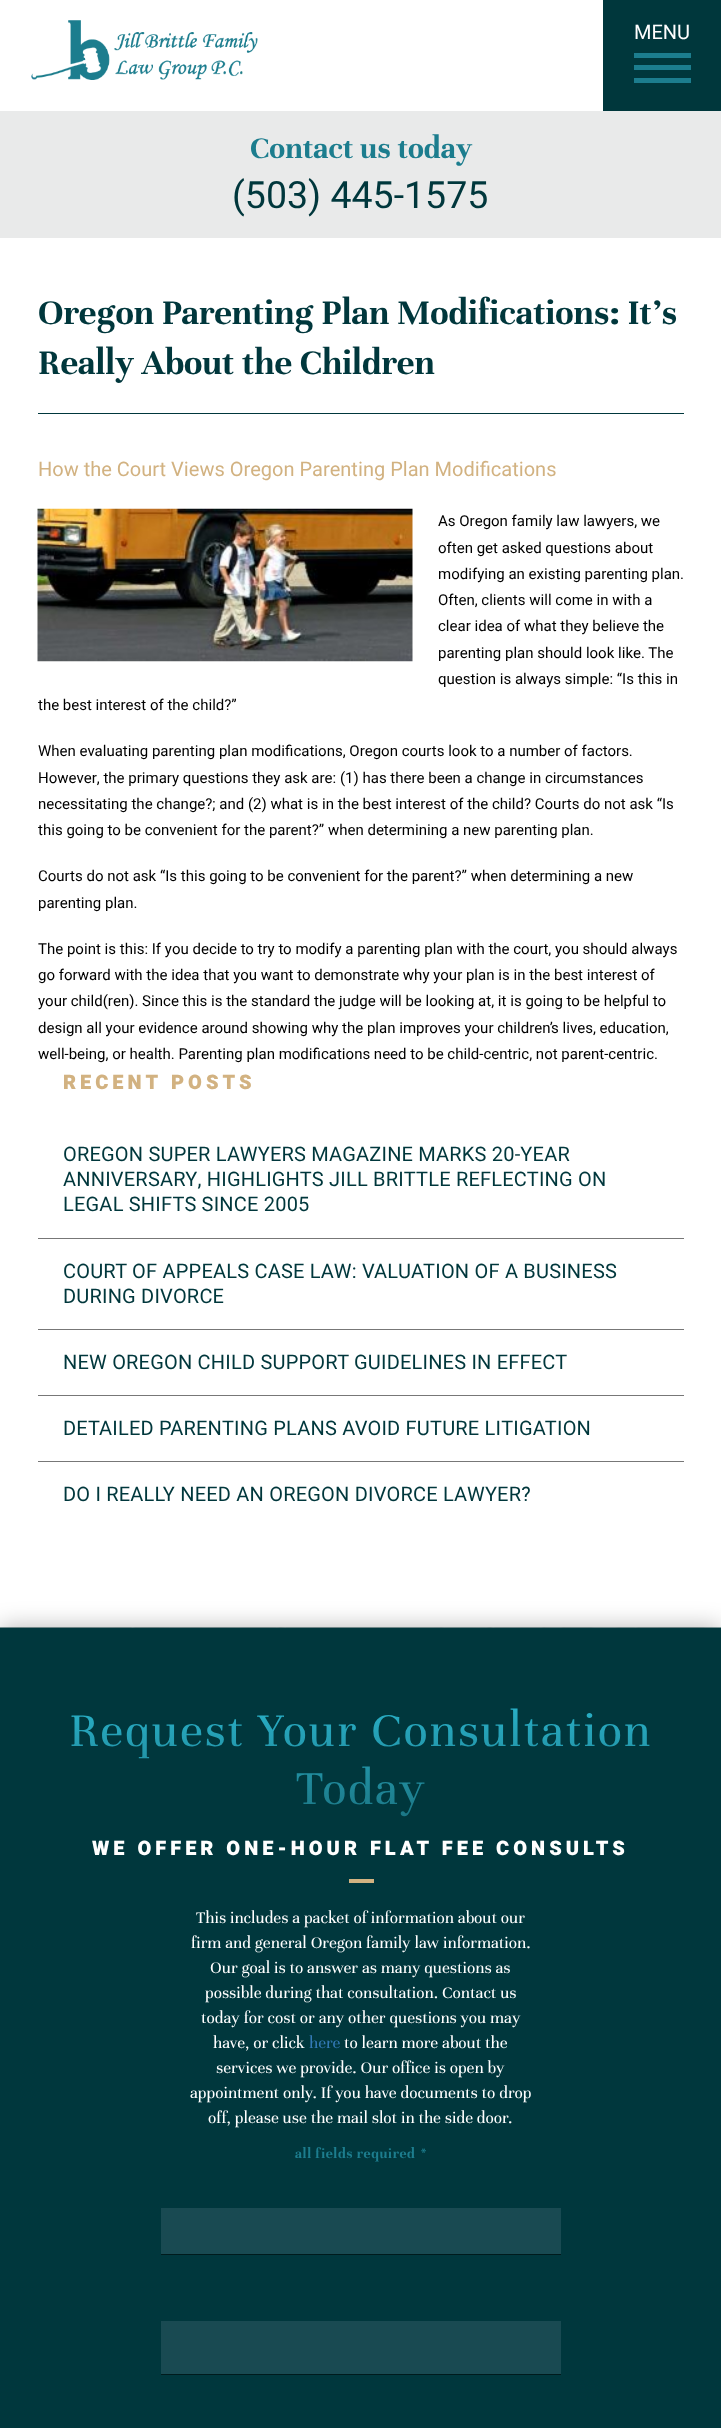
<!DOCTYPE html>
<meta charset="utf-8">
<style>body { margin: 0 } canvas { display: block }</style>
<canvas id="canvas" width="721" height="2428"></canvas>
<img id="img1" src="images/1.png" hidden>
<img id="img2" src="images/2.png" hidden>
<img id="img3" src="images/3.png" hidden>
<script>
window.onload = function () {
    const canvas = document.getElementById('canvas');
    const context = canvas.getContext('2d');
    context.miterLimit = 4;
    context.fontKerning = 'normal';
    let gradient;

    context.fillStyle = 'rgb(255, 255, 255)';
    context.fillRect(0, 0, 721, 2428);
    context.drawImage(document.getElementById('img1'), 31, 20, 227, 60);
    context.fillStyle = 'rgb(0, 55, 60)';
    context.fillRect(603, 0, 118, 111);
    context.fillStyle = 'rgb(28, 125, 142)';
    context.fillRect(634, 53, 57, 5);
    context.fillRect(634, 65, 57, 5);
    context.fillRect(634, 78, 57, 5);
    context.fillStyle = 'rgb(233, 234, 234)';
    context.fillRect(0, 111, 721, 127);
    context.fillStyle = 'rgb(0, 55, 60)';
    context.fillRect(38, 413, 646, 1);
    context.drawImage(document.getElementById('img2'), 37, 508, 376, 154);
    context.fillStyle = 'rgb(119, 119, 119)';
    context.fillRect(38, 1238, 646, 1);
    context.fillRect(38, 1329, 646, 1);
    context.fillRect(38, 1395, 646, 1);
    context.fillRect(38, 1461, 646, 1);
    context.drawImage(document.getElementById('img3'), 0, 1627, 721, 1);
    context.fillStyle = 'rgba(0, 0, 0, 0.3)';
    context.filter = 'blur(12.5px)';
    context.beginPath();
    context.rect(0, 1628, 721, 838);
    context.fill();
    context.filter = 'none';
    context.fillStyle = 'rgb(0, 55, 61)';
    context.fillRect(0, 1628, 721, 800);
    context.fillStyle = 'rgb(210, 178, 129)';
    context.fillRect(349, 1879, 25, 4);
    context.fillStyle = 'rgb(25, 74, 82)';
    context.fillRect(161, 2208, 400, 46);
    context.fillStyle = 'rgb(0, 27, 29)';
    context.fillRect(161, 2254, 400, 1);
    context.fillStyle = 'rgb(25, 74, 82)';
    context.fillRect(161, 2321, 400, 53);
    context.fillStyle = 'rgb(0, 27, 29)';
    context.fillRect(161, 2374, 400, 1);
    context.font = '20px Heebo';
    context.fillStyle = 'rgb(255, 255, 255)';
    context.fillText('MENU', 634, 39);
    context.font = 'bold 32.5px Unna';
    context.fillStyle = 'rgb(28, 125, 142)';
    context.fillText('Contact us today', 250, 158);
    context.font = '37.5px Heebo';
    context.fillStyle = 'rgb(0, 55, 60)';
    context.fillText('(503) 445-1575', 232, 208);
    context.font = 'bold 37.5px Unna';
    context.fillText('Oregon Parenting Plan Modifications: It’s', 38, 324);
    context.fillText('Really About the Children', 38, 374);
    context.font = '20px Heebo';
    context.fillStyle = 'rgb(210, 178, 129)';
    context.fillText('How the Court Views Oregon Parenting Plan Modifications', 38, 476);
    context.font = '15px Heebo';
    context.fillStyle = 'rgb(0, 0, 0)';
    context.fillText('As Oregon family law lawyers, we', 438, 526);
    context.fillText('often get asked questions about', 438, 553);
    context.fillText('modifying an existing parenting plan.', 438, 579);
    context.fillText('Often, clients will come in with a', 438, 605);
    context.fillText('clear idea of what they believe the', 438, 631);
    context.fillText('parenting plan should look like. The', 438, 658);
    context.fillText('question is always simple: “Is this in', 438, 684);
    context.fillText('the best interest of the child?”', 38, 710);
    context.fillText('When evaluating parenting plan modifications, Oregon courts look to a number of factors.', 38, 756);
    context.fillText('However, the primary questions they ask are: (1) has there been a change in circumstances', 38, 783);
    context.fillText('necessitating the change?; and (2) what is in the best interest of the child? Courts do not ask “Is', 38, 809);
    context.fillText('this going to be convenient for the parent?” when determining a new parenting plan.', 38, 835);
    context.fillText('Courts do not ask “Is this going to be convenient for the parent?” when determining a new', 38, 881);
    context.fillText('parenting plan.', 38, 908);
    context.fillText('The point is this: If you decide to try to modify a parenting plan with the court, you should always', 38, 954);
    context.fillText('go forward with the idea that you want to demonstrate why your plan is in the best interest of', 38, 980);
    context.fillText('your child(ren). Since this is the standard the judge will be looking at, it is going to be helpful to', 38, 1006);
    context.fillText('design all your evidence around showing why the plan improves your children’s lives, education,', 38, 1033);
    context.fillText('well-being, or health. Parenting plan modifications need to be child-centric, not parent-centric.', 38, 1059);
    context.letterSpacing = '4px';
    context.font = '900 20px Heebo';
    context.fillStyle = 'rgb(210, 178, 129)';
    context.fillText('RECENT POSTS', 63, 1089);
    context.letterSpacing = '0.2px';
    context.font = '20px Heebo';
    context.fillStyle = 'rgb(0, 55, 60)';
    context.fillText('OREGON SUPER LAWYERS MAGAZINE MARKS 20-YEAR', 63, 1161);
    context.fillText('ANNIVERSARY, HIGHLIGHTS JILL BRITTLE REFLECTING ON', 63, 1186);
    context.fillText('LEGAL SHIFTS SINCE 2005', 63, 1211);
    context.fillText('COURT OF APPEALS CASE LAW: VALUATION OF A BUSINESS', 63, 1278);
    context.fillText('DURING DIVORCE', 63, 1303);
    context.fillText('NEW OREGON CHILD SUPPORT GUIDELINES IN EFFECT', 63, 1369);
    context.fillText('DETAILED PARENTING PLANS AVOID FUTURE LITIGATION', 63, 1435);
    context.fillText('DO I REALLY NEED AN OREGON DIVORCE LAWYER?', 63, 1501);
    context.letterSpacing = '1.55px';
    context.font = '51.25px Unna';
    gradient = context.createLinearGradient(361, 1703, 361, 1818);
    gradient.addColorStop(0, 'rgb(41, 177, 201)');
    gradient.addColorStop(1, 'rgb(27, 118, 133)');
    context.fillStyle = gradient;
    context.fillText('Request Your Consultation', 69, 1746);
    context.fillText('Today', 296, 1804);
    context.letterSpacing = '4px';
    context.font = '900 20px Heebo';
    context.fillStyle = 'rgb(255, 255, 255)';
    context.fillText('WE OFFER ONE-HOUR FLAT FEE CONSULTS', 92, 1855);
    context.letterSpacing = '0px';
    context.font = '17.5px Unna';
    context.fillText('This includes a packet of information about our', 196, 1923);
    context.fillText('firm and general Oregon family law information.', 191, 1948);
    context.fillText('Our goal is to answer as many questions as', 210, 1973);
    context.fillText('possible during that consultation. Contact us', 205, 1998);
    context.fillText('today for cost or any other questions you may', 201, 2023);
    context.fillText('have, or click', 213, 2048);
    context.fillStyle = 'rgb(51, 122, 183)';
    context.fillText('here', 309, 2048);
    context.fillStyle = 'rgb(255, 255, 255)';
    context.fillText('to learn more about the', 344, 2048);
    context.fillText('services we provide. Our office is open by', 216, 2073);
    context.fillText('appointment only. If you have documents to drop', 190, 2098);
    context.fillText('off, please use the mail slot in the side door.', 208, 2123);
    context.letterSpacing = '0.6px';
    context.font = 'bold 15px Unna';
    context.fillStyle = 'rgb(28, 125, 142)';
    context.fillText('all fields required', 295, 2158);
    context.fillText('*', 421, 2158);
};
</script>
